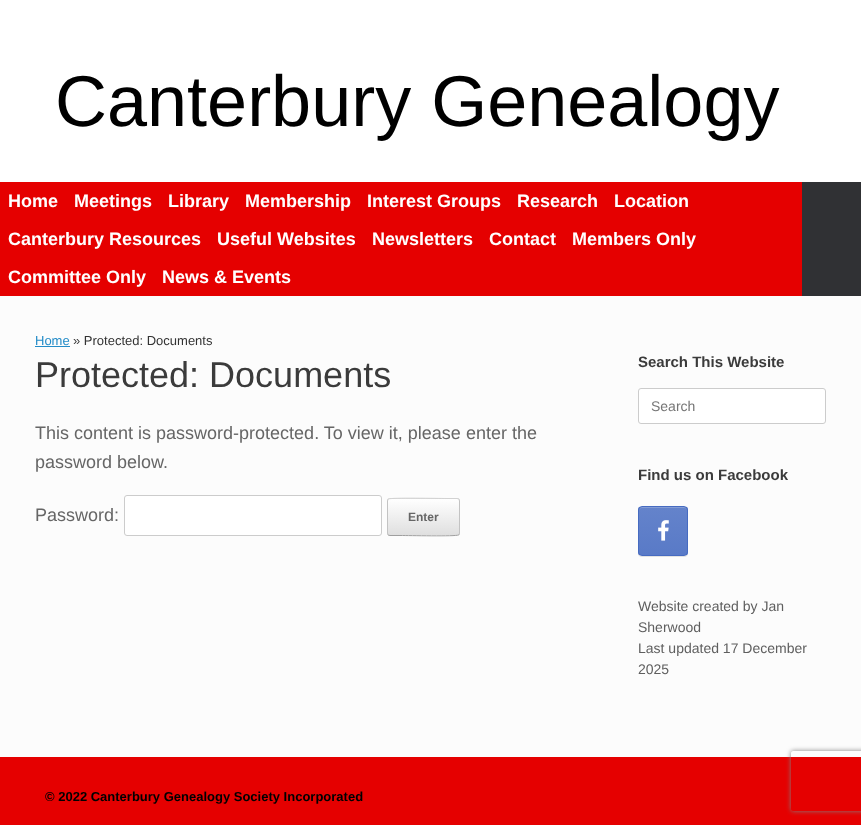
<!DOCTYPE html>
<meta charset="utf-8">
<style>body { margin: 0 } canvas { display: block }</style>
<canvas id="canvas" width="861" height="825"></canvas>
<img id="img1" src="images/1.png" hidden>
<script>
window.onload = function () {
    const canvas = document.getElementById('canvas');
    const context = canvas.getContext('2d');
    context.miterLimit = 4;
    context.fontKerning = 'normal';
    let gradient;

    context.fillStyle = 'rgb(229, 0, 0)';
    context.fillRect(0, 0, 861, 825);
    context.fillStyle = 'rgb(255, 255, 255)';
    context.fillRect(0, 0, 861, 182);
    context.fillStyle = 'rgb(48, 49, 52)';
    context.fillRect(802, 182, 59, 114);
    context.fillStyle = 'rgb(252, 252, 252)';
    context.fillRect(0, 296, 861, 461);
    context.fillStyle = 'rgb(36, 140, 200)';
    context.fillRect(35, 346, 35, 1);
    context.fillStyle = 'rgb(255, 255, 255)';
    context.beginPath();
    context.roundRect(124.5, 495.5, 257, 40, 2.5);
    context.fill();
    context.strokeStyle = 'rgb(204, 204, 204)';
    context.stroke();
    context.save();
    context.beginPath();
    context.roundRect(387, 498, 73, 38, 3);
    context.clip();
    gradient = context.createLinearGradient(388, 499, 388, 463);
    gradient.addColorStop(0, 'rgb(223, 223, 223)');
    gradient.addColorStop(1, 'rgb(255, 255, 255)');
    context.fillStyle = gradient;
    context.fillRect(387, 498, 73, 1);
    gradient = context.createLinearGradient(388, 535, 388, 499);
    gradient.addColorStop(0, 'rgb(223, 223, 223)');
    gradient.addColorStop(1, 'rgb(255, 255, 255)');
    context.fillStyle = gradient;
    context.fillRect(387, 499, 73, 36);
    gradient = context.createLinearGradient(388, 571, 388, 535);
    gradient.addColorStop(0, 'rgb(223, 223, 223)');
    gradient.addColorStop(1, 'rgb(255, 255, 255)');
    context.fillStyle = gradient;
    context.fillRect(387, 535, 73, 1);
    context.restore();
    context.beginPath();
    context.moveTo(388, 499);
    context.lineTo(388.5, 499);
    context.bezierCurveTo(390.5, 497.5, 439.5, 498.5, 446, 498.5);
    context.lineTo(457, 498.5);
    context.lineTo(459, 499);
    context.strokeStyle = 'rgb(210, 210, 210)';
    context.stroke();
    context.beginPath();
    context.moveTo(459, 499);
    context.bezierCurveTo(459, 499.5, 459.5, 500.5, 459.5, 501);
    context.lineTo(459.5, 533);
    context.bezierCurveTo(459.5, 533.5, 459, 534.5, 459, 535);
    context.strokeStyle = 'rgb(195, 195, 195)';
    context.stroke();
    context.beginPath();
    context.moveTo(459, 535);
    context.lineTo(458.5, 535);
    context.bezierCurveTo(456.5, 536.5, 407.5, 535.5, 401, 535.5);
    context.lineTo(390, 535.5);
    context.lineTo(388, 535);
    context.strokeStyle = 'rgb(159, 159, 159)';
    context.stroke();
    context.beginPath();
    context.moveTo(388, 535);
    context.bezierCurveTo(388, 534.5, 387.5, 533.5, 387.5, 533);
    context.lineTo(387.5, 501);
    context.bezierCurveTo(387.5, 500.5, 388, 499.5, 388, 499);
    context.strokeStyle = 'rgb(195, 195, 195)';
    context.stroke();
    context.beginPath();
    context.roundRect(638.5, 388.5, 187, 35, 2.5);
    context.fill();
    context.strokeStyle = 'rgb(204, 204, 204)';
    context.stroke();
    context.fillStyle = 'rgba(0, 0, 0, 0.1)';
    context.filter = 'blur(0.5px)';
    context.beginPath();
    context.roundRect(638, 507, 50, 50, 4);
    context.fill();
    context.filter = 'none';
    context.save();
    context.beginPath();
    context.roundRect(638, 506, 50, 50, 4);
    context.clip();
    gradient = context.createLinearGradient(663, 555, 663, 507);
    gradient.addColorStop(0, 'rgb(89, 122, 199)');
    gradient.addColorStop(1, 'rgb(100, 131, 203)');
    context.fillStyle = gradient;
    context.fillRect(638, 507, 50, 48);
    context.restore();
    context.fillStyle = 'rgb(131, 156, 213)';
    context.beginPath();
    context.moveTo(642, 508);
    context.lineTo(684, 508);
    context.bezierCurveTo(686, 508, 687, 509, 687, 511);
    context.bezierCurveTo(687, 505, 681, 507, 677, 507);
    context.lineTo(649, 507);
    context.bezierCurveTo(645, 507, 639, 505, 639, 511);
    context.bezierCurveTo(639, 509, 640, 508, 642, 508);
    context.closePath();
    context.fill();
    context.beginPath();
    context.roundRect(638.5, 506.5, 49, 49, 3.5);
    context.strokeStyle = 'rgb(70, 107, 193)';
    context.stroke();
    context.drawImage(document.getElementById('img1'), 658, 520, 11, 21);
    context.save();
    context.beginPath();
    context.moveTo(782, 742);
    context.lineTo(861, 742);
    context.lineTo(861, 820);
    context.lineTo(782, 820);
    context.closePath();
    context.moveTo(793, 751);
    context.lineTo(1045, 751);
    context.bezierCurveTo(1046, 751, 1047, 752, 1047, 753);
    context.lineTo(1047, 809);
    context.bezierCurveTo(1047, 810, 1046, 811, 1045, 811);
    context.lineTo(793, 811);
    context.bezierCurveTo(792, 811, 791, 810, 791, 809);
    context.lineTo(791, 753);
    context.bezierCurveTo(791, 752, 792, 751, 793, 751);
    context.closePath();
    context.clip('evenodd');
    context.fillStyle = 'rgb(128, 128, 128)';
    context.filter = 'blur(2.5px)';
    context.beginPath();
    context.roundRect(791, 751, 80, 60, 2);
    context.fill();
    context.filter = 'none';
    context.restore();
    context.font = '72px Liberation Sans';
    context.fillStyle = 'rgb(0, 0, 0)';
    context.fillText('Canterbury Genealogy', 55, 126);
    context.font = 'bold 18px Liberation Sans';
    context.fillStyle = 'rgb(255, 255, 255)';
    context.fillText('Home', 8, 207);
    context.fillText('Meetings', 74, 207);
    context.fillText('Library', 168, 207);
    context.fillText('Membership', 245, 207);
    context.fillText('Interest Groups', 367, 207);
    context.fillText('Research', 517, 207);
    context.fillText('Location', 614, 207);
    context.fillText('Canterbury Resources', 8, 245);
    context.fillText('Useful Websites', 217, 245);
    context.fillText('Newsletters', 372, 245);
    context.fillText('Contact', 489, 245);
    context.fillText('Members Only', 572, 245);
    context.fillText('Committee Only', 8, 283);
    context.fillText('News & Events', 162, 283);
    context.font = '13px Liberation Sans';
    context.fillStyle = 'rgb(36, 140, 200)';
    context.fillText('Home', 35, 345);
    context.fillStyle = 'rgb(51, 51, 51)';
    context.fillText('» Protected: Documents', 73, 345);
    context.font = '36px Liberation Sans';
    context.fillStyle = 'rgb(59, 59, 59)';
    context.fillText('Protected: Documents', 35, 387);
    context.font = '18px Liberation Sans';
    context.fillStyle = 'rgb(102, 102, 102)';
    context.fillText('This content is password-protected. To view it, please enter the', 35, 439);
    context.fillText('password below.', 35, 468);
    context.fillText('Password:', 35, 521);
    context.font = 'bold 12px Liberation Sans';
    context.fillText('Enter', 408, 521);
    context.font = 'bold 15px Liberation Sans';
    context.fillStyle = 'rgb(59, 59, 59)';
    context.fillText('Search This Website', 638, 367);
    context.font = '14px Liberation Sans';
    context.fillStyle = 'rgb(117, 117, 117)';
    context.fillText('Search', 651, 411);
    context.font = 'bold 15px Liberation Sans';
    context.fillStyle = 'rgb(59, 59, 59)';
    context.fillText('Find us on Facebook', 638, 480);
    context.font = '14px Liberation Sans';
    context.fillStyle = 'rgb(94, 94, 94)';
    context.fillText('Website created by Jan', 638, 611);
    context.fillText('Sherwood', 638, 632);
    context.fillText('Last updated 17 December', 638, 653);
    context.fillText('2025', 638, 674);
    context.font = 'bold 13px Liberation Sans';
    context.fillStyle = 'rgb(0, 0, 0)';
    context.fillText('© 2022 Canterbury Genealogy Society Incorporated', 45, 801);
};
</script>
